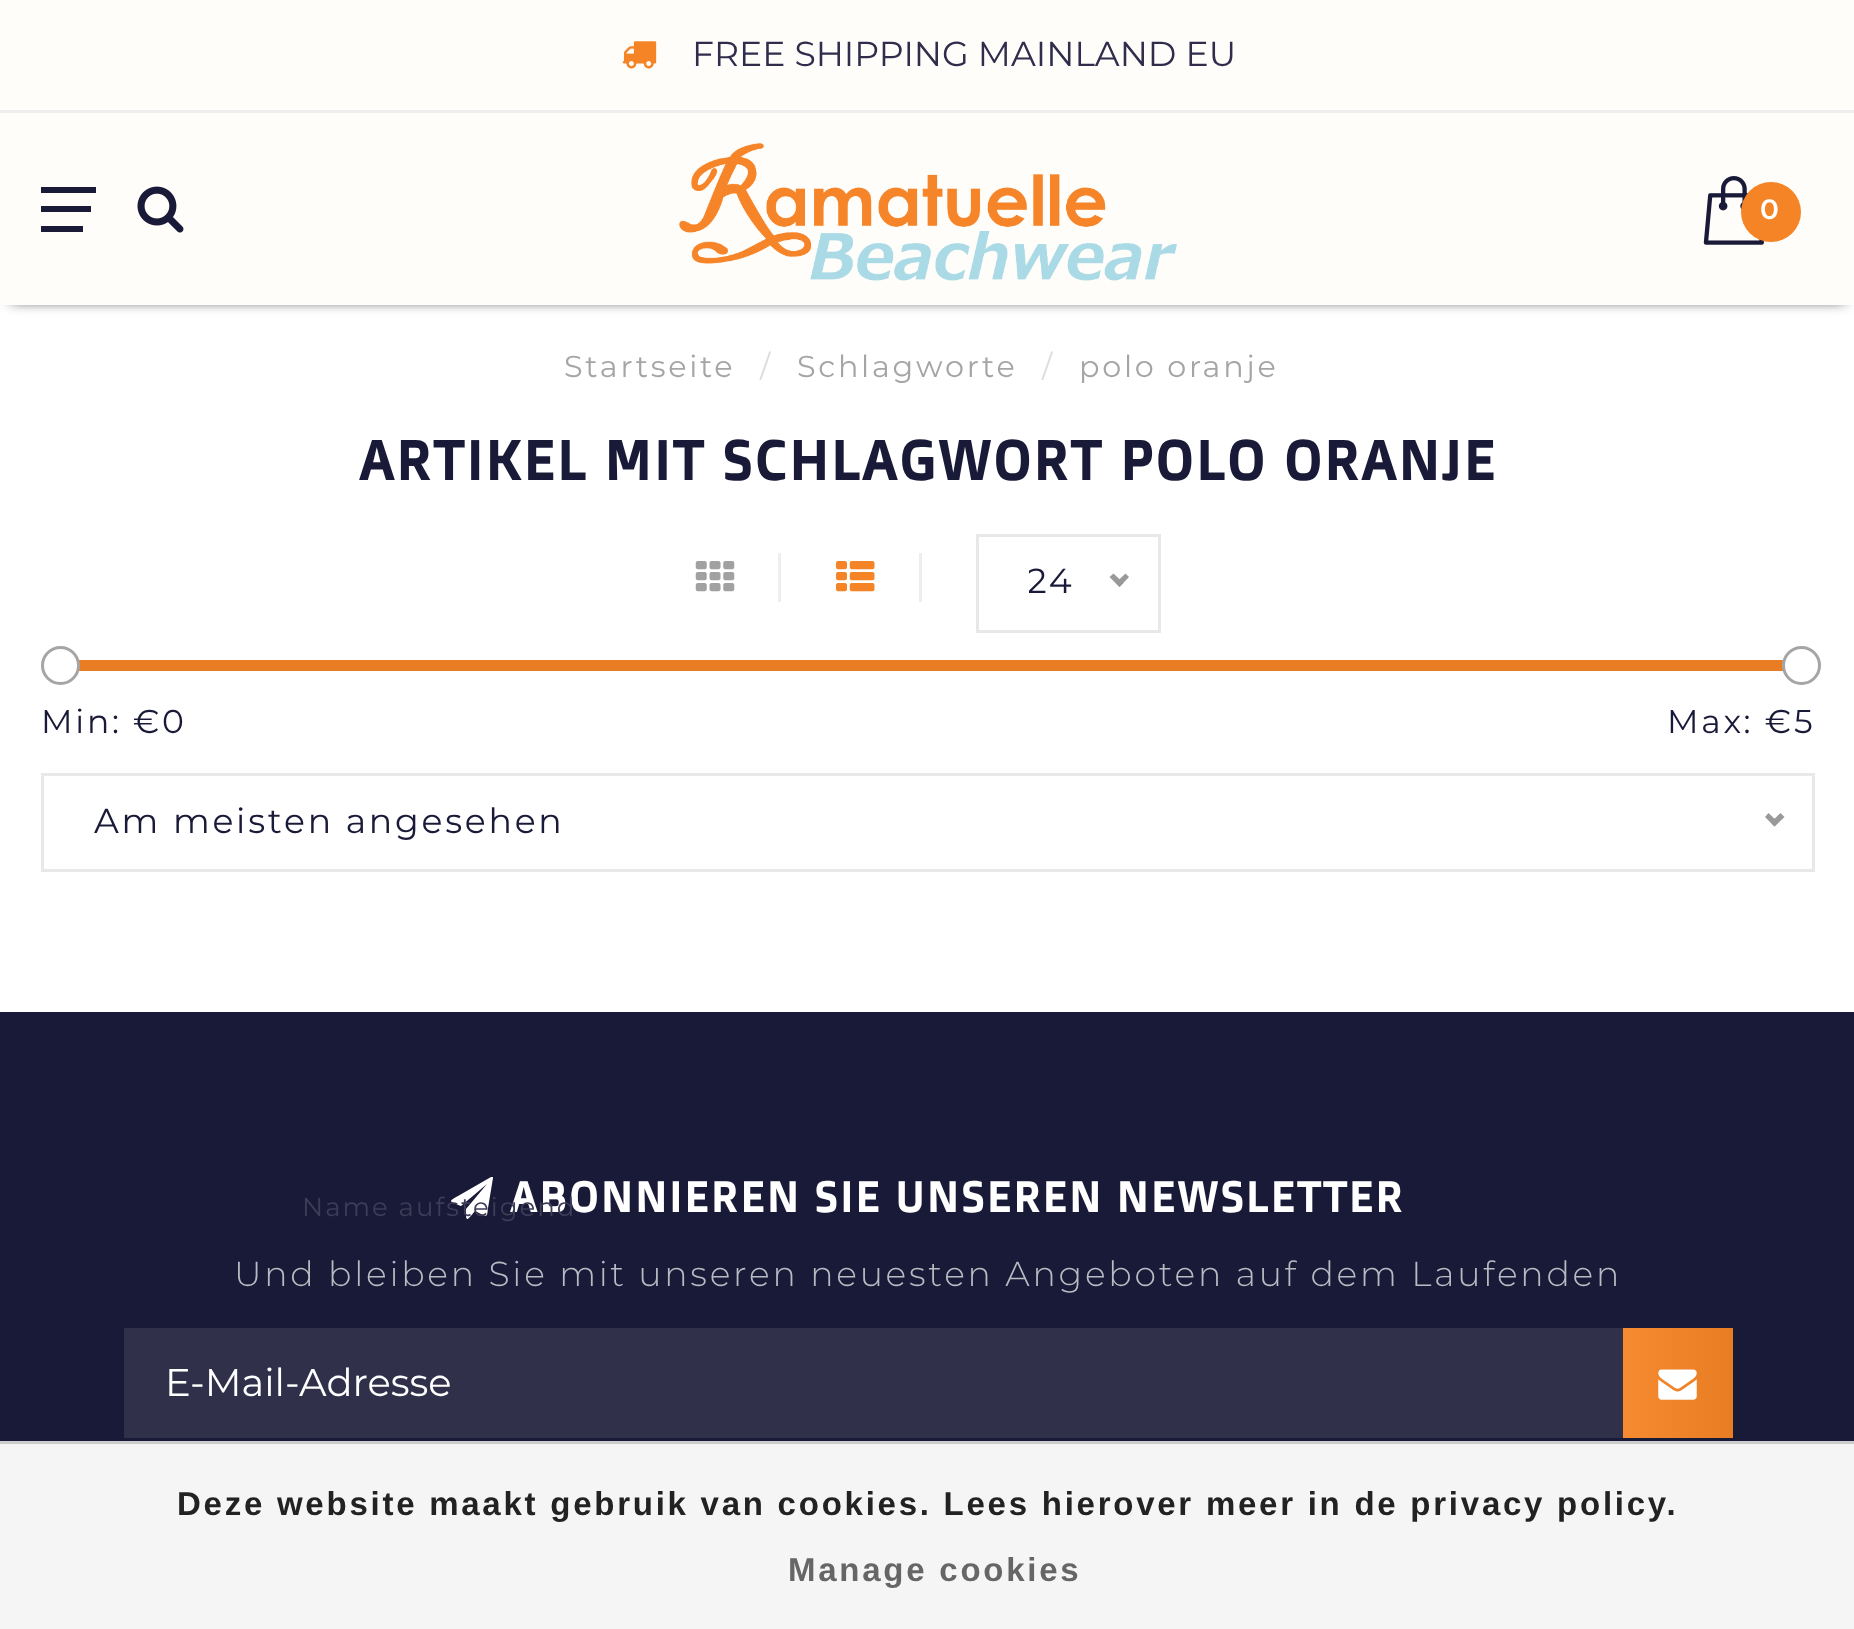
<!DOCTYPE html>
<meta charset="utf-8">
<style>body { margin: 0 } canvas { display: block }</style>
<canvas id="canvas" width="1854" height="1629"></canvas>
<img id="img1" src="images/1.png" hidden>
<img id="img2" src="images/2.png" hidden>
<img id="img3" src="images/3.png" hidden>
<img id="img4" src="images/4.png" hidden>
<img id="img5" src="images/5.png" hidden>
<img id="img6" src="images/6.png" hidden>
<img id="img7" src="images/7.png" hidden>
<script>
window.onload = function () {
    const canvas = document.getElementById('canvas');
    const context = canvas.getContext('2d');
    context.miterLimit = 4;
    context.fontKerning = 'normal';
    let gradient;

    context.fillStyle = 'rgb(255, 255, 255)';
    context.fillRect(0, 0, 1854, 1629);
    context.fillStyle = 'rgb(255, 253, 250)';
    context.fillRect(0, 0, 1854, 110);
    context.fillStyle = 'rgb(238, 238, 238)';
    context.fillRect(0, 110, 1854, 3);
    context.drawImage(document.getElementById('img1'), 622, 41, 35, 28);
    context.fillStyle = 'rgb(0, 0, 0)';
    context.filter = 'blur(7px)';
    context.beginPath();
    context.rect(11, 129, 1834, 171);
    context.fill();
    context.filter = 'none';
    context.fillStyle = 'rgb(255, 253, 250)';
    context.fillRect(0, 113, 1854, 192);
    context.fillStyle = 'rgb(25, 25, 56)';
    context.fillRect(41, 187, 55, 6);
    context.fillRect(41, 206, 50, 6);
    context.fillRect(41, 226, 42, 6);
    context.drawImage(document.getElementById('img2'), 137, 186, 47, 47);
    context.drawImage(document.getElementById('img3'), 679, 143, 498, 138);
    context.drawImage(document.getElementById('img4'), 1703, 176, 61, 69);
    context.fillStyle = 'rgb(245, 132, 38)';
    context.beginPath();
    context.arc(1771, 212, 30, 0, 2 * Math.PI);
    context.fill();
    context.fillStyle = 'rgb(238, 238, 238)';
    context.fillRect(778, 553, 3, 49);
    context.drawImage(document.getElementById('img5'), 695, 561, 40, 31);
    context.fillRect(919, 553, 3, 49);
    context.drawImage(document.getElementById('img6'), 836, 561, 39, 31);
    context.strokeStyle = 'rgb(232, 232, 232)';
    context.lineWidth = 3;
    context.strokeRect(977.5, 535.5, 182, 96);
    context.fillStyle = 'rgb(153, 153, 153)';
    context.beginPath();
    context.moveTo(1125.5, 573.5);
    context.lineTo(1129, 577);
    context.lineTo(1119.5, 587);
    context.lineTo(1115.5, 583);
    context.closePath();
    context.fill();
    context.beginPath();
    context.moveTo(1113.5, 573.5);
    context.lineTo(1123.5, 583);
    context.lineTo(1119.5, 587);
    context.lineTo(1109.5, 577);
    context.closePath();
    context.fill();
    context.fillStyle = 'rgb(245, 245, 245)';
    context.fillRect(41, 660, 1, 11);
    context.fillStyle = 'rgb(232, 125, 36)';
    context.fillRect(79, 660, 1704, 11);
    context.fillStyle = 'rgb(255, 255, 255)';
    context.beginPath();
    context.arc(60.5, 665.5, 18, 0, 2 * Math.PI);
    context.fill();
    context.strokeStyle = 'rgb(165, 165, 165)';
    context.stroke();
    context.beginPath();
    context.arc(1801.5, 665.5, 18, 0, 2 * Math.PI);
    context.fill();
    context.stroke();
    context.strokeStyle = 'rgb(232, 232, 232)';
    context.strokeRect(42.5, 774.5, 1771, 96);
    context.fillStyle = 'rgb(153, 153, 153)';
    context.beginPath();
    context.moveTo(1780.5, 813);
    context.lineTo(1784.5, 817);
    context.lineTo(1774.5, 826.5);
    context.lineTo(1770.5, 822.5);
    context.closePath();
    context.fill();
    context.beginPath();
    context.moveTo(1768.5, 813);
    context.lineTo(1778.5, 822.5);
    context.lineTo(1774.5, 826.5);
    context.lineTo(1765, 817);
    context.closePath();
    context.fill();
    context.fillStyle = 'rgb(25, 25, 56)';
    context.fillRect(0, 1012, 1854, 429);
    context.fillStyle = 'rgb(255, 255, 255)';
    context.beginPath();
    context.moveTo(493, 1177);
    context.lineTo(493, 1178);
    context.lineTo(488, 1208);
    context.bezierCurveTo(487, 1215, 488, 1217, 483, 1215);
    context.lineTo(475, 1211);
    context.bezierCurveTo(466, 1222, 466, 1222, 466, 1209);
    context.lineTo(487, 1184);
    context.lineTo(461, 1206);
    context.bezierCurveTo(450, 1201, 447, 1202, 458, 1196);
    context.lineTo(491, 1177);
    context.closePath();
    context.fill();
    context.fillStyle = 'rgb(48, 48, 75)';
    context.fillRect(124, 1328, 1499, 110);
    gradient = context.createLinearGradient(1623, 1383, 1733, 1383);
    gradient.addColorStop(0, 'rgb(245, 138, 48)');
    gradient.addColorStop(1, 'rgb(232, 125, 36)');
    context.fillStyle = gradient;
    context.fillRect(1623, 1328, 110, 110);
    context.drawImage(document.getElementById('img7'), 1658, 1369, 39, 31);
    context.fillStyle = 'rgb(245, 245, 245)';
    context.fillRect(0, 1444, 1854, 185);
    context.fillStyle = 'rgb(204, 204, 204)';
    context.fillRect(0, 1441, 1854, 3);
    context.font = '34.65px Montserrat';
    context.fillStyle = 'rgb(47, 44, 76)';
    context.fillText('FREE SHIPPING MAINLAND EU', 692, 66);
    context.letterSpacing = '2.75px';
    context.font = '600 28px Montserrat';
    context.fillStyle = 'rgb(255, 255, 255)';
    context.fillText('0', 1760, 219);
    context.font = '30.25px Montserrat';
    context.fillStyle = 'rgb(165, 165, 165)';
    context.fillText('Startseite', 564, 377);
    context.fillStyle = 'rgb(221, 221, 221)';
    context.fillText('/', 760, 377);
    context.fillStyle = 'rgb(165, 165, 165)';
    context.fillText('Schlagworte', 797, 377);
    context.fillStyle = 'rgb(221, 221, 221)';
    context.fillText('/', 1042, 377);
    context.fillStyle = 'rgb(165, 165, 165)';
    context.fillText('polo oranje', 1079, 377);
    context.font = 'bold 55px Doppio One';
    context.fillStyle = 'rgb(25, 25, 56)';
    context.fillText('ARTIKEL MIT SCHLAGWORT POLO ORANJE', 359, 480);
    context.save();
    context.beginPath();
    context.rect(1029, 536, 46, 94);
    context.clip();
    context.font = '34.65px Montserrat';
    context.fillText('24', 1027, 593);
    context.restore();
    context.font = '33px Montserrat';
    context.fillText('Min: €', 41, 733);
    context.fillText('0', 162, 733);
    context.fillText('Max: €', 1667, 733);
    context.fillText('5', 1794, 733);
    context.font = '34.65px Montserrat';
    context.fillText('Am meisten angesehen', 94, 833);
    context.font = 'bold 42.35px Doppio One';
    context.fillStyle = 'rgb(255, 255, 255)';
    context.fillText('ABONNIEREN SIE UNSEREN NEWSLETTER', 510, 1212);
    context.letterSpacing = '2px';
    context.font = '26px Montserrat';
    context.fillStyle = 'rgb(61, 61, 88)';
    context.fillText('Name aufsteigend', 302, 1216);
    context.letterSpacing = '2.75px';
    context.font = '300 34.65px Montserrat';
    context.fillStyle = 'rgb(186, 186, 195)';
    context.fillText('Und bleiben Sie mit unseren neuesten Angeboten auf dem Laufenden', 234, 1286);
    context.letterSpacing = '0px';
    context.font = '38.5px Montserrat';
    context.fillStyle = 'rgb(255, 255, 255)';
    context.fillText('E-Mail-Adresse', 165, 1396);
    context.letterSpacing = '2.75px';
    context.font = 'bold 33px Liberation Sans';
    context.fillStyle = 'rgb(34, 34, 34)';
    context.fillText('Deze website maakt gebruik van cookies. Lees hierover meer in de privacy policy.', 177, 1515);
    context.fillStyle = 'rgb(102, 102, 102)';
    context.fillText('Manage cookies', 788, 1581);
};
</script>
